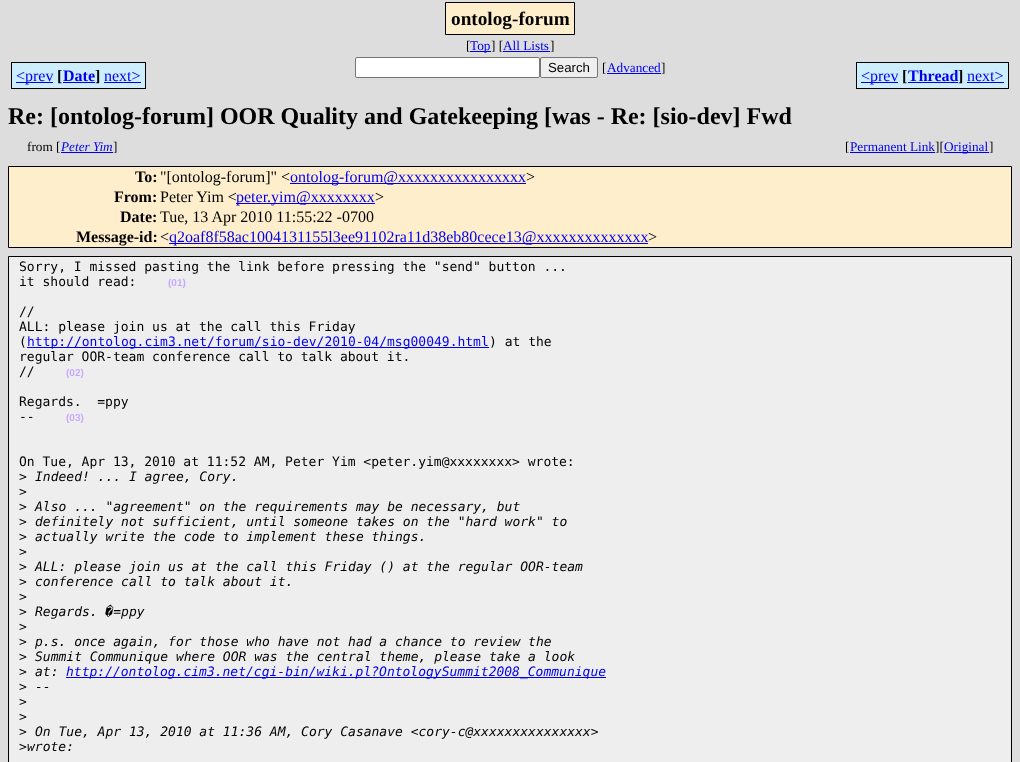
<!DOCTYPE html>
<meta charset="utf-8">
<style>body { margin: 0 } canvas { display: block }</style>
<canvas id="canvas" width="1020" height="762"></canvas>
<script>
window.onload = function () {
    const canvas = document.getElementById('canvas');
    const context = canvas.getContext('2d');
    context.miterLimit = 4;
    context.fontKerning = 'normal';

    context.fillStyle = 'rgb(221, 221, 221)';
    context.fillRect(0, 0, 1020, 762);
    context.fillStyle = 'rgb(255, 238, 204)';
    context.beginPath();
    context.rect(445.5, 2.5, 129, 32);
    context.fill();
    context.strokeStyle = 'rgb(0, 0, 0)';
    context.stroke();
    context.fillStyle = 'rgb(0, 0, 238)';
    context.fillRect(470, 51, 21, 1);
    context.fillRect(503, 51, 47, 1);
    context.fillStyle = 'rgb(204, 238, 255)';
    context.fillRect(12, 63, 41, 25);
    context.fillStyle = 'rgb(0, 0, 0)';
    context.fillRect(11, 62, 42, 1);
    context.fillRect(11, 88, 42, 1);
    context.fillRect(11, 62, 1, 27);
    context.fillStyle = 'rgb(204, 238, 255)';
    context.fillRect(53, 62, 10, 27);
    context.fillStyle = 'rgb(0, 0, 0)';
    context.fillRect(53, 88, 42, 1);
    context.fillStyle = 'rgb(0, 0, 238)';
    context.fillRect(16, 82, 37, 1);
    context.fillStyle = 'rgb(204, 238, 255)';
    context.fillRect(63, 63, 32, 25);
    context.fillStyle = 'rgb(0, 0, 238)';
    context.fillRect(63, 82, 32, 1);
    context.fillStyle = 'rgb(0, 0, 0)';
    context.fillRect(53, 62, 42, 1);
    context.fillStyle = 'rgb(204, 238, 255)';
    context.fillRect(95, 62, 9, 27);
    context.fillStyle = 'rgb(0, 0, 0)';
    context.fillRect(95, 62, 51, 1);
    context.fillRect(95, 88, 9, 1);
    context.fillStyle = 'rgb(204, 238, 255)';
    context.fillRect(104, 63, 41, 25);
    context.fillStyle = 'rgb(0, 0, 0)';
    context.fillRect(145, 62, 1, 27);
    context.fillRect(104, 88, 42, 1);
    context.fillStyle = 'rgb(0, 0, 238)';
    context.fillRect(104, 82, 37, 1);
    context.fillStyle = 'rgb(255, 255, 255)';
    context.beginPath();
    context.roundRect(355.5, 57.5, 184, 20, 1.5);
    context.fill();
    context.strokeStyle = 'rgb(118, 118, 118)';
    context.stroke();
    context.fillStyle = 'rgb(239, 239, 239)';
    context.beginPath();
    context.roundRect(540.5, 57.5, 57, 20, 1.5);
    context.fill();
    context.stroke();
    context.fillStyle = 'rgb(0, 0, 238)';
    context.fillRect(607, 73, 54, 1);
    context.fillStyle = 'rgb(204, 238, 255)';
    context.fillRect(857, 63, 41, 25);
    context.fillStyle = 'rgb(0, 0, 0)';
    context.fillRect(856, 62, 42, 1);
    context.fillRect(856, 88, 42, 1);
    context.fillRect(856, 62, 1, 27);
    context.fillStyle = 'rgb(204, 238, 255)';
    context.fillRect(898, 62, 10, 27);
    context.fillStyle = 'rgb(0, 0, 0)';
    context.fillRect(898, 88, 60, 1);
    context.fillStyle = 'rgb(0, 0, 238)';
    context.fillRect(861, 82, 37, 1);
    context.fillStyle = 'rgb(204, 238, 255)';
    context.fillRect(908, 63, 50, 25);
    context.fillStyle = 'rgb(0, 0, 238)';
    context.fillRect(908, 82, 50, 1);
    context.fillStyle = 'rgb(0, 0, 0)';
    context.fillRect(898, 62, 60, 1);
    context.fillStyle = 'rgb(204, 238, 255)';
    context.fillRect(958, 62, 9, 27);
    context.fillStyle = 'rgb(0, 0, 0)';
    context.fillRect(958, 62, 51, 1);
    context.fillRect(958, 88, 9, 1);
    context.fillStyle = 'rgb(204, 238, 255)';
    context.fillRect(967, 63, 41, 25);
    context.fillStyle = 'rgb(0, 0, 0)';
    context.fillRect(1008, 62, 1, 27);
    context.fillRect(967, 88, 42, 1);
    context.fillStyle = 'rgb(0, 0, 238)';
    context.fillRect(967, 82, 37, 1);
    context.fillRect(61, 152, 52, 1);
    context.fillRect(850, 152, 85, 1);
    context.fillRect(944, 152, 45, 1);
    context.fillStyle = 'rgb(255, 238, 204)';
    context.beginPath();
    context.rect(8.5, 166.5, 1003, 81);
    context.fill();
    context.strokeStyle = 'rgb(0, 0, 0)';
    context.stroke();
    context.fillStyle = 'rgb(0, 0, 238)';
    context.fillRect(290, 183, 236, 1);
    context.fillRect(236, 203, 139, 1);
    context.fillRect(169, 243, 479, 1);
    context.fillStyle = 'rgb(238, 238, 238)';
    context.beginPath();
    context.rect(8.5, 256.5, 1003, 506);
    context.fill();
    context.stroke();
    context.fillStyle = 'rgb(0, 0, 238)';
    context.fillRect(27, 347, 462, 1);
    context.fillRect(66, 677, 540, 1);
    context.font = 'bold 19.25px Liberation Serif';
    context.fillStyle = 'rgb(0, 0, 0)';
    context.fillText('ontolog-forum', 451, 25);
    context.font = '13.25px Liberation Serif';
    context.fillText('[', 466, 50);
    context.fillStyle = 'rgb(0, 0, 238)';
    context.fillText('Top', 470, 50);
    context.fillStyle = 'rgb(0, 0, 0)';
    context.fillText('] [', 491, 50);
    context.fillStyle = 'rgb(0, 0, 238)';
    context.fillText('All Lists', 503, 50);
    context.fillStyle = 'rgb(0, 0, 0)';
    context.fillText(']', 550, 50);
    context.font = '16px Liberation Serif';
    context.fillStyle = 'rgb(0, 0, 238)';
    context.fillText('<prev', 16, 81);
    context.font = 'bold 16px Liberation Serif';
    context.fillStyle = 'rgb(0, 0, 0)';
    context.fillText('[', 57, 81);
    context.fillStyle = 'rgb(0, 0, 238)';
    context.fillText('Date', 63, 81);
    context.fillStyle = 'rgb(0, 0, 0)';
    context.fillText(']', 95, 81);
    context.font = '16px Liberation Serif';
    context.fillStyle = 'rgb(0, 0, 238)';
    context.fillText('next>', 104, 81);
    context.font = '13.25px Liberation Sans';
    context.fillStyle = 'rgb(0, 0, 0)';
    context.fillText('Search', 548, 72);
    context.font = '13.25px Liberation Serif';
    context.fillText('[', 602, 72);
    context.fillStyle = 'rgb(0, 0, 238)';
    context.fillText('Advanced', 607, 72);
    context.fillStyle = 'rgb(0, 0, 0)';
    context.fillText(']', 661, 72);
    context.font = '16px Liberation Serif';
    context.fillStyle = 'rgb(0, 0, 238)';
    context.fillText('<prev', 861, 81);
    context.font = 'bold 16px Liberation Serif';
    context.fillStyle = 'rgb(0, 0, 0)';
    context.fillText('[', 902, 81);
    context.fillStyle = 'rgb(0, 0, 238)';
    context.fillText('Thread', 908, 81);
    context.fillStyle = 'rgb(0, 0, 0)';
    context.fillText(']', 958, 81);
    context.font = '16px Liberation Serif';
    context.fillStyle = 'rgb(0, 0, 238)';
    context.fillText('next>', 967, 81);
    context.font = 'bold 24px Liberation Serif';
    context.fillStyle = 'rgb(0, 0, 0)';
    context.fillText('Re: [ontolog-forum] OOR Quality and Gatekeeping [was - Re: [sio-dev] Fwd', 8, 124);
    context.font = '13.25px Liberation Serif';
    context.fillText('from [', 27, 151);
    context.font = 'italic 13.25px Liberation Serif';
    context.fillStyle = 'rgb(0, 0, 238)';
    context.fillText('Peter Yim', 61, 151);
    context.font = '13.25px Liberation Serif';
    context.fillStyle = 'rgb(0, 0, 0)';
    context.fillText(']', 113, 151);
    context.fillText('[', 845, 151);
    context.fillStyle = 'rgb(0, 0, 238)';
    context.fillText('Permanent Link', 850, 151);
    context.fillStyle = 'rgb(0, 0, 0)';
    context.fillText('][', 935, 151);
    context.fillStyle = 'rgb(0, 0, 238)';
    context.fillText('Original', 944, 151);
    context.fillStyle = 'rgb(0, 0, 0)';
    context.fillText(']', 989, 151);
    context.font = 'bold 16px Liberation Serif';
    context.fillText('To:', 135, 182);
    context.font = '16px Liberation Serif';
    context.fillText('"[ontolog-forum]" <', 160, 182);
    context.fillStyle = 'rgb(0, 0, 238)';
    context.fillText('ontolog-forum@xxxxxxxxxxxxxxxx', 290, 182);
    context.fillStyle = 'rgb(0, 0, 0)';
    context.fillText('>', 526, 182);
    context.font = 'bold 16px Liberation Serif';
    context.fillText('From:', 114, 202);
    context.font = '16px Liberation Serif';
    context.fillText('Peter Yim <', 160, 202);
    context.fillStyle = 'rgb(0, 0, 238)';
    context.fillText('peter.yim@xxxxxxxx', 236, 202);
    context.fillStyle = 'rgb(0, 0, 0)';
    context.fillText('>', 375, 202);
    context.font = 'bold 16px Liberation Serif';
    context.fillText('Date:', 120, 222);
    context.font = '16px Liberation Serif';
    context.fillText('Tue, 13 Apr 2010 11:55:22 -0700', 160, 222);
    context.font = 'bold 16px Liberation Serif';
    context.fillText('Message-id:', 76, 242);
    context.font = '16px Liberation Serif';
    context.fillText('<', 160, 242);
    context.fillStyle = 'rgb(0, 0, 238)';
    context.fillText('q2oaf8f58ac1004131155l3ee91102ra11d38eb80cece13@xxxxxxxxxxxxxx', 169, 242);
    context.fillStyle = 'rgb(0, 0, 0)';
    context.fillText('>', 648, 242);
    context.font = '13px DejaVu Sans Mono';
    context.fillText('Sorry, I missed pasting the link before pressing the "send" button ...', 19, 271);
    context.fillText('it should read:', 19, 286);
    context.font = 'bold 10px Liberation Sans';
    context.fillStyle = 'rgb(200, 168, 255)';
    context.fillText('(01)', 168, 286);
    context.font = '13px DejaVu Sans Mono';
    context.fillStyle = 'rgb(0, 0, 0)';
    context.fillText('//', 19, 316);
    context.fillText('ALL: please join us at the call this Friday', 19, 331);
    context.fillText('(', 19, 346);
    context.fillStyle = 'rgb(0, 0, 238)';
    context.fillText('http://ontolog.cim3.net/forum/sio-dev/2010-04/msg00049.html', 27, 346);
    context.fillStyle = 'rgb(0, 0, 0)';
    context.fillText(') at the', 489, 346);
    context.fillText('regular OOR-team conference call to talk about it.', 19, 361);
    context.fillText('//', 19, 376);
    context.font = 'bold 10px Liberation Sans';
    context.fillStyle = 'rgb(200, 168, 255)';
    context.fillText('(02)', 66, 376);
    context.font = '13px DejaVu Sans Mono';
    context.fillStyle = 'rgb(0, 0, 0)';
    context.fillText('Regards.  =ppy', 19, 406);
    context.fillText('--', 19, 421);
    context.font = 'bold 10px Liberation Sans';
    context.fillStyle = 'rgb(200, 168, 255)';
    context.fillText('(03)', 66, 421);
    context.font = '13px DejaVu Sans Mono';
    context.fillStyle = 'rgb(0, 0, 0)';
    context.fillText('On Tue, Apr 13, 2010 at 11:52 AM, Peter Yim <peter.yim@xxxxxxxx> wrote:', 19, 466);
    context.fillText('>', 19, 481);
    context.font = 'italic 13px DejaVu Sans Mono';
    context.fillText('Indeed! ... I agree, Cory.', 35, 481);
    context.font = '13px DejaVu Sans Mono';
    context.fillText('>', 19, 496);
    context.fillText('>', 19, 511);
    context.font = 'italic 13px DejaVu Sans Mono';
    context.fillText('Also ... "agreement" on the requirements may be necessary, but', 35, 511);
    context.font = '13px DejaVu Sans Mono';
    context.fillText('>', 19, 526);
    context.font = 'italic 13px DejaVu Sans Mono';
    context.fillText('definitely not sufficient, until someone takes on the "hard work" to', 35, 526);
    context.font = '13px DejaVu Sans Mono';
    context.fillText('>', 19, 541);
    context.font = 'italic 13px DejaVu Sans Mono';
    context.fillText('actually write the code to implement these things.', 35, 541);
    context.font = '13px DejaVu Sans Mono';
    context.fillText('>', 19, 556);
    context.fillText('>', 19, 571);
    context.font = 'italic 13px DejaVu Sans Mono';
    context.fillText('ALL: please join us at the call this Friday () at the regular OOR-team', 35, 571);
    context.font = '13px DejaVu Sans Mono';
    context.fillText('>', 19, 586);
    context.font = 'italic 13px DejaVu Sans Mono';
    context.fillText('conference call to talk about it.', 35, 586);
    context.font = '13px DejaVu Sans Mono';
    context.fillText('>', 19, 601);
    context.fillText('>', 19, 616);
    context.font = 'italic 13px DejaVu Sans Mono';
    context.fillText('Regards. �=ppy', 35, 616);
    context.font = '13px DejaVu Sans Mono';
    context.fillText('>', 19, 631);
    context.fillText('>', 19, 646);
    context.font = 'italic 13px DejaVu Sans Mono';
    context.fillText('p.s. once again, for those who have not had a chance to review the', 35, 646);
    context.font = '13px DejaVu Sans Mono';
    context.fillText('>', 19, 661);
    context.font = 'italic 13px DejaVu Sans Mono';
    context.fillText('Summit Communique where OOR was the central theme, please take a look', 35, 661);
    context.font = '13px DejaVu Sans Mono';
    context.fillText('>', 19, 676);
    context.font = 'italic 13px DejaVu Sans Mono';
    context.fillText('at:', 35, 676);
    context.fillStyle = 'rgb(0, 0, 238)';
    context.fillText('http://ontolog.cim3.net/cgi-bin/wiki.pl?OntologySummit2008_Communique', 66, 676);
    context.font = '13px DejaVu Sans Mono';
    context.fillStyle = 'rgb(0, 0, 0)';
    context.fillText('>', 19, 691);
    context.font = 'italic 13px DejaVu Sans Mono';
    context.fillText('--', 35, 691);
    context.font = '13px DejaVu Sans Mono';
    context.fillText('>', 19, 706);
    context.fillText('>', 19, 721);
    context.fillText('>', 19, 736);
    context.font = 'italic 13px DejaVu Sans Mono';
    context.fillText('On Tue, Apr 13, 2010 at 11:36 AM, Cory Casanave <cory-c@xxxxxxxxxxxxxxx>', 35, 736);
    context.font = '13px DejaVu Sans Mono';
    context.fillText('>', 19, 751);
    context.font = 'italic 13px DejaVu Sans Mono';
    context.fillText('wrote:', 27, 751);
};
</script>
